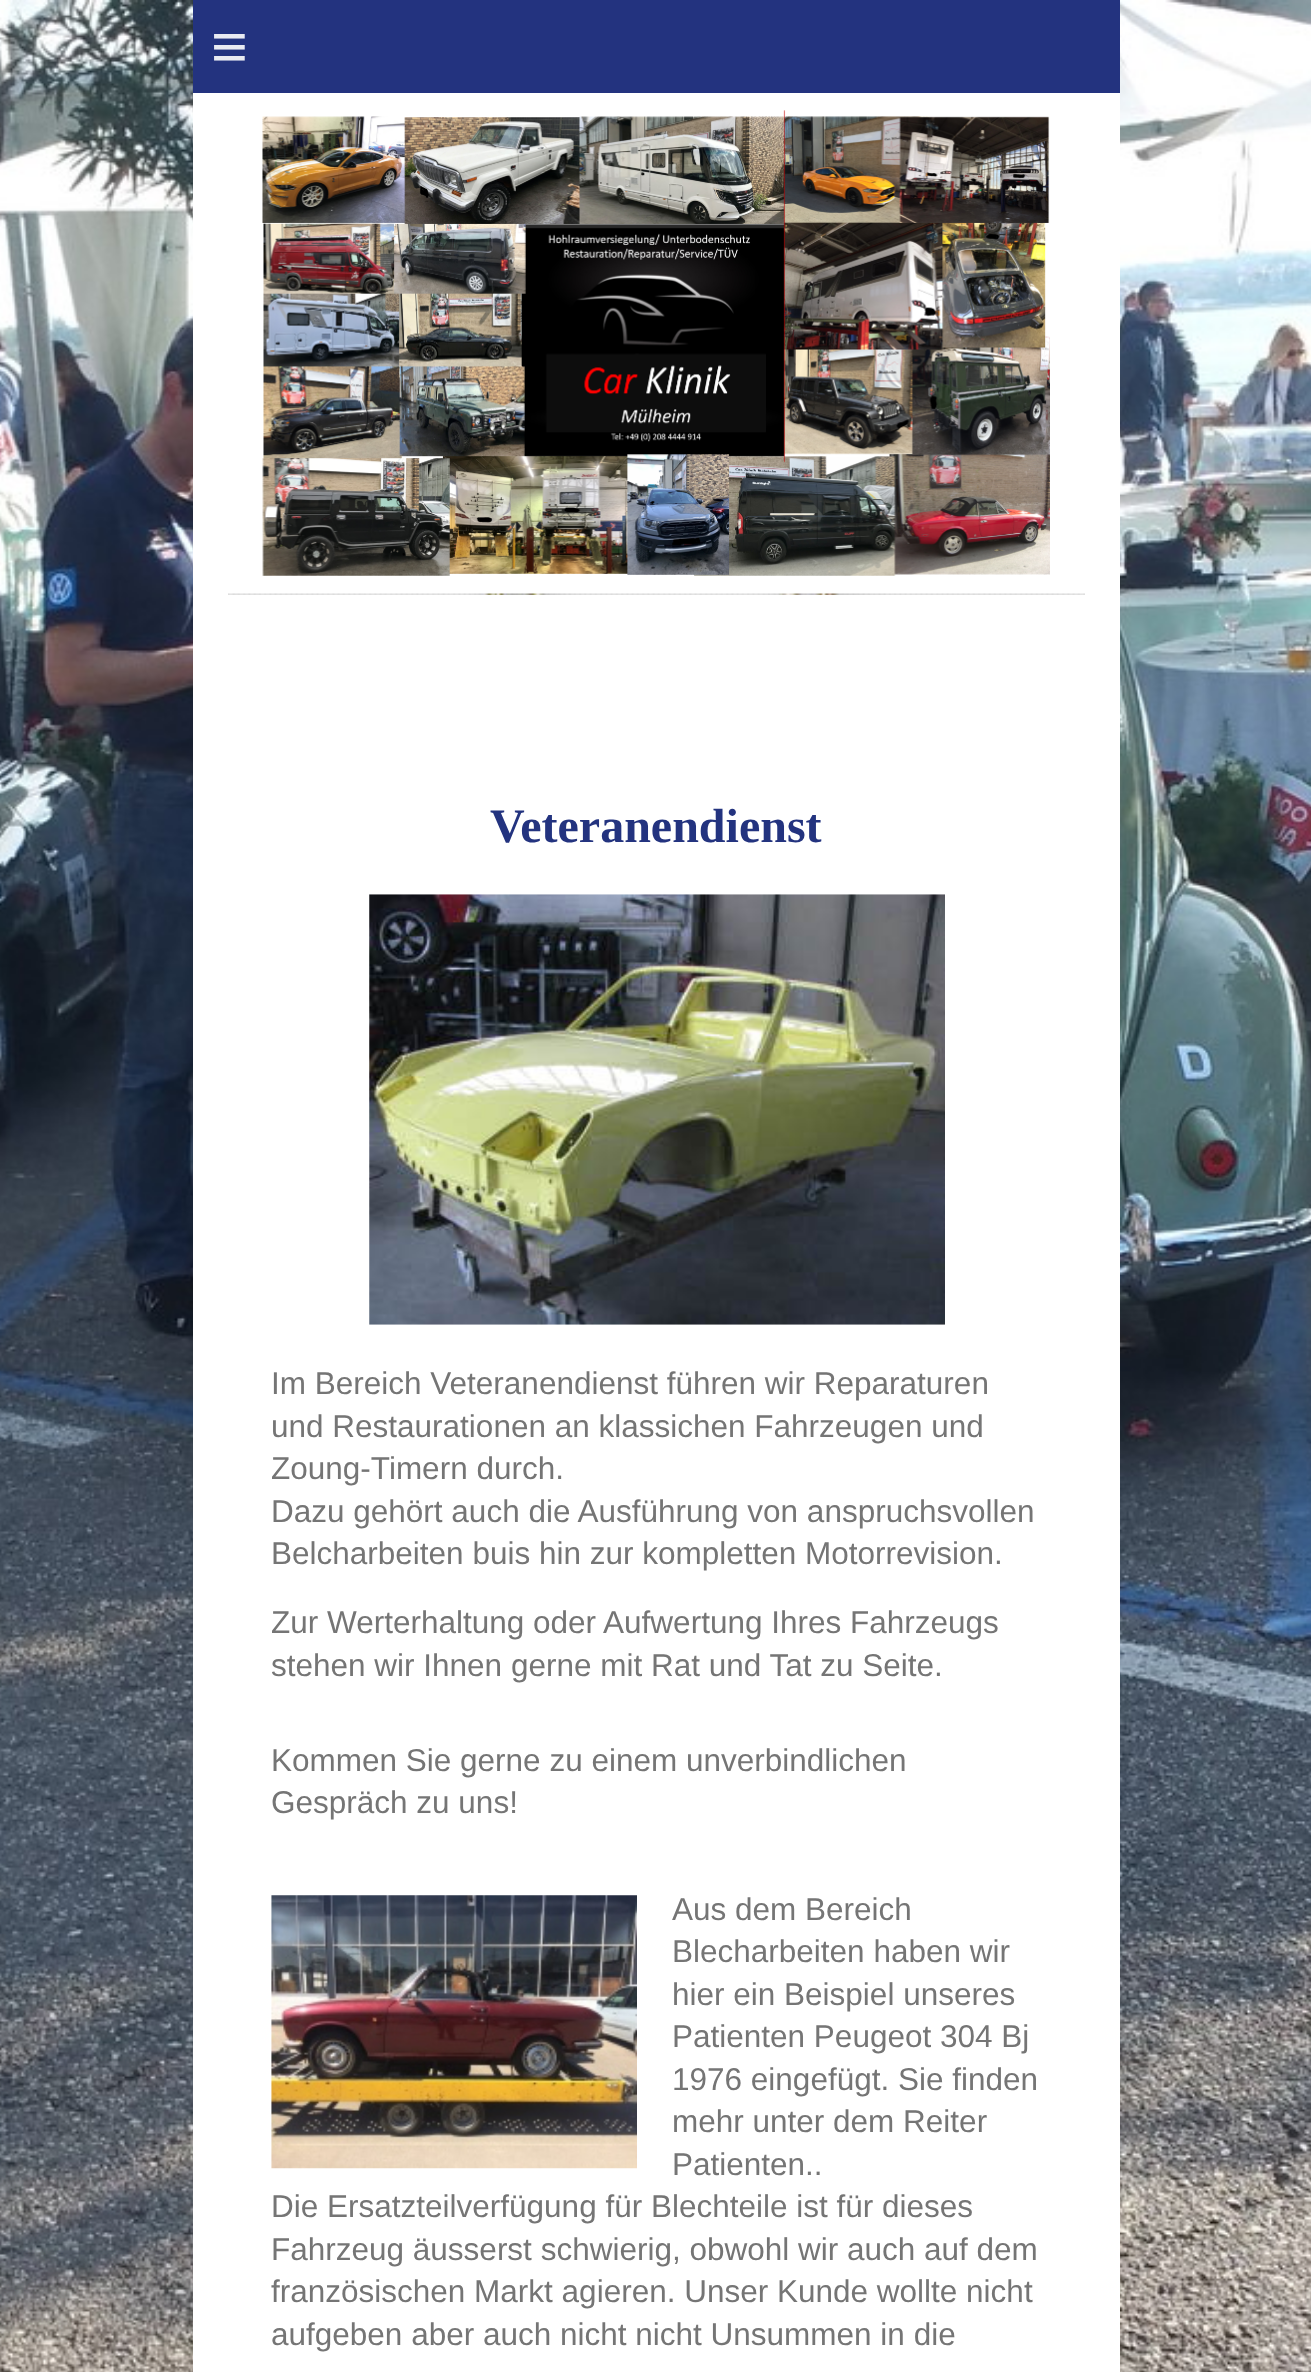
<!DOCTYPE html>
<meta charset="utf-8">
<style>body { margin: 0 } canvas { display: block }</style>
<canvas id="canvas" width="1311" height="2372"></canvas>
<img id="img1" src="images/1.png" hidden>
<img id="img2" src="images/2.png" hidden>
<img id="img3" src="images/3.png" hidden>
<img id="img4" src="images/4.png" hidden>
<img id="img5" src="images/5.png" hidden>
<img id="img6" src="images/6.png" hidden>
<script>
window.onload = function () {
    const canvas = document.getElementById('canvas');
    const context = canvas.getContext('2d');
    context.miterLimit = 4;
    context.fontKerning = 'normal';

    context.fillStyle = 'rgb(255, 255, 255)';
    context.fillRect(0, 0, 1311, 2372);
    context.drawImage(document.getElementById('img1'), 0, 0, 1311, 2372);
    context.fillStyle = 'rgb(35, 51, 127)';
    context.fillRect(193, 0, 927, 93);
    context.fillStyle = 'rgb(255, 255, 255)';
    context.fillRect(193, 93, 927, 2279);
    context.drawImage(document.getElementById('img2'), 262, 110, 788, 466);
    context.drawImage(document.getElementById('img3'), 228, 593, 857, 2);
    context.drawImage(document.getElementById('img4'), 228, 593, 857, 2);
    context.drawImage(document.getElementById('img5'), 369, 894, 576, 431);
    context.drawImage(document.getElementById('img6'), 271, 1895, 366, 274);
    context.letterSpacing = '18px';
    context.font = '63px Liberation Sans';
    context.fillStyle = 'rgb(233, 235, 242)';
    context.fillText('≡', 211, 68);
    context.letterSpacing = '0px';
    context.font = 'bold 48px Liberation Serif';
    context.fillStyle = 'rgb(35, 51, 127)';
    context.fillText('Veteranendienst', 490, 842);
    context.font = '31.5px Liberation Sans';
    context.fillStyle = 'rgb(117, 117, 117)';
    context.fillText('Im Bereich Veteranendienst führen wir Reparaturen', 271, 1394);
    context.fillText('und Restaurationen an klassichen Fahrzeugen und', 271, 1437);
    context.fillText('Zoung-Timern durch.', 271, 1479);
    context.fillText('Dazu gehört auch die Ausführung von anspruchsvollen', 271, 1522);
    context.fillText('Belcharbeiten buis hin zur kompletten Motorrevision.', 271, 1564);
    context.fillText('Zur Werterhaltung oder Aufwertung Ihres Fahrzeugs', 271, 1633);
    context.fillText('stehen wir Ihnen gerne mit Rat und Tat zu Seite.', 271, 1676);
    context.fillText('Kommen Sie gerne zu einem unverbindlichen', 271, 1771);
    context.fillText('Gespräch zu uns!', 271, 1813);
    context.fillText('Aus dem Bereich', 672, 1920);
    context.fillText('Blecharbeiten haben wir', 672, 1962);
    context.fillText('hier ein Beispiel unseres', 672, 2005);
    context.fillText('Patienten Peugeot 304 Bj', 672, 2047);
    context.fillText('1976 eingefügt. Sie finden', 672, 2090);
    context.fillText('mehr unter dem Reiter', 672, 2132);
    context.fillText('Patienten..', 672, 2175);
    context.fillText('Die Ersatzteilverfügung für Blechteile ist für dieses', 271, 2217);
    context.fillText('Fahrzeug äusserst schwierig, obwohl wir auch auf dem', 271, 2260);
    context.fillText('französischen Markt agieren. Unser Kunde wollte nicht', 271, 2302);
    context.fillText('aufgeben aber auch nicht nicht Unsummen in die', 271, 2345);
};
</script>
